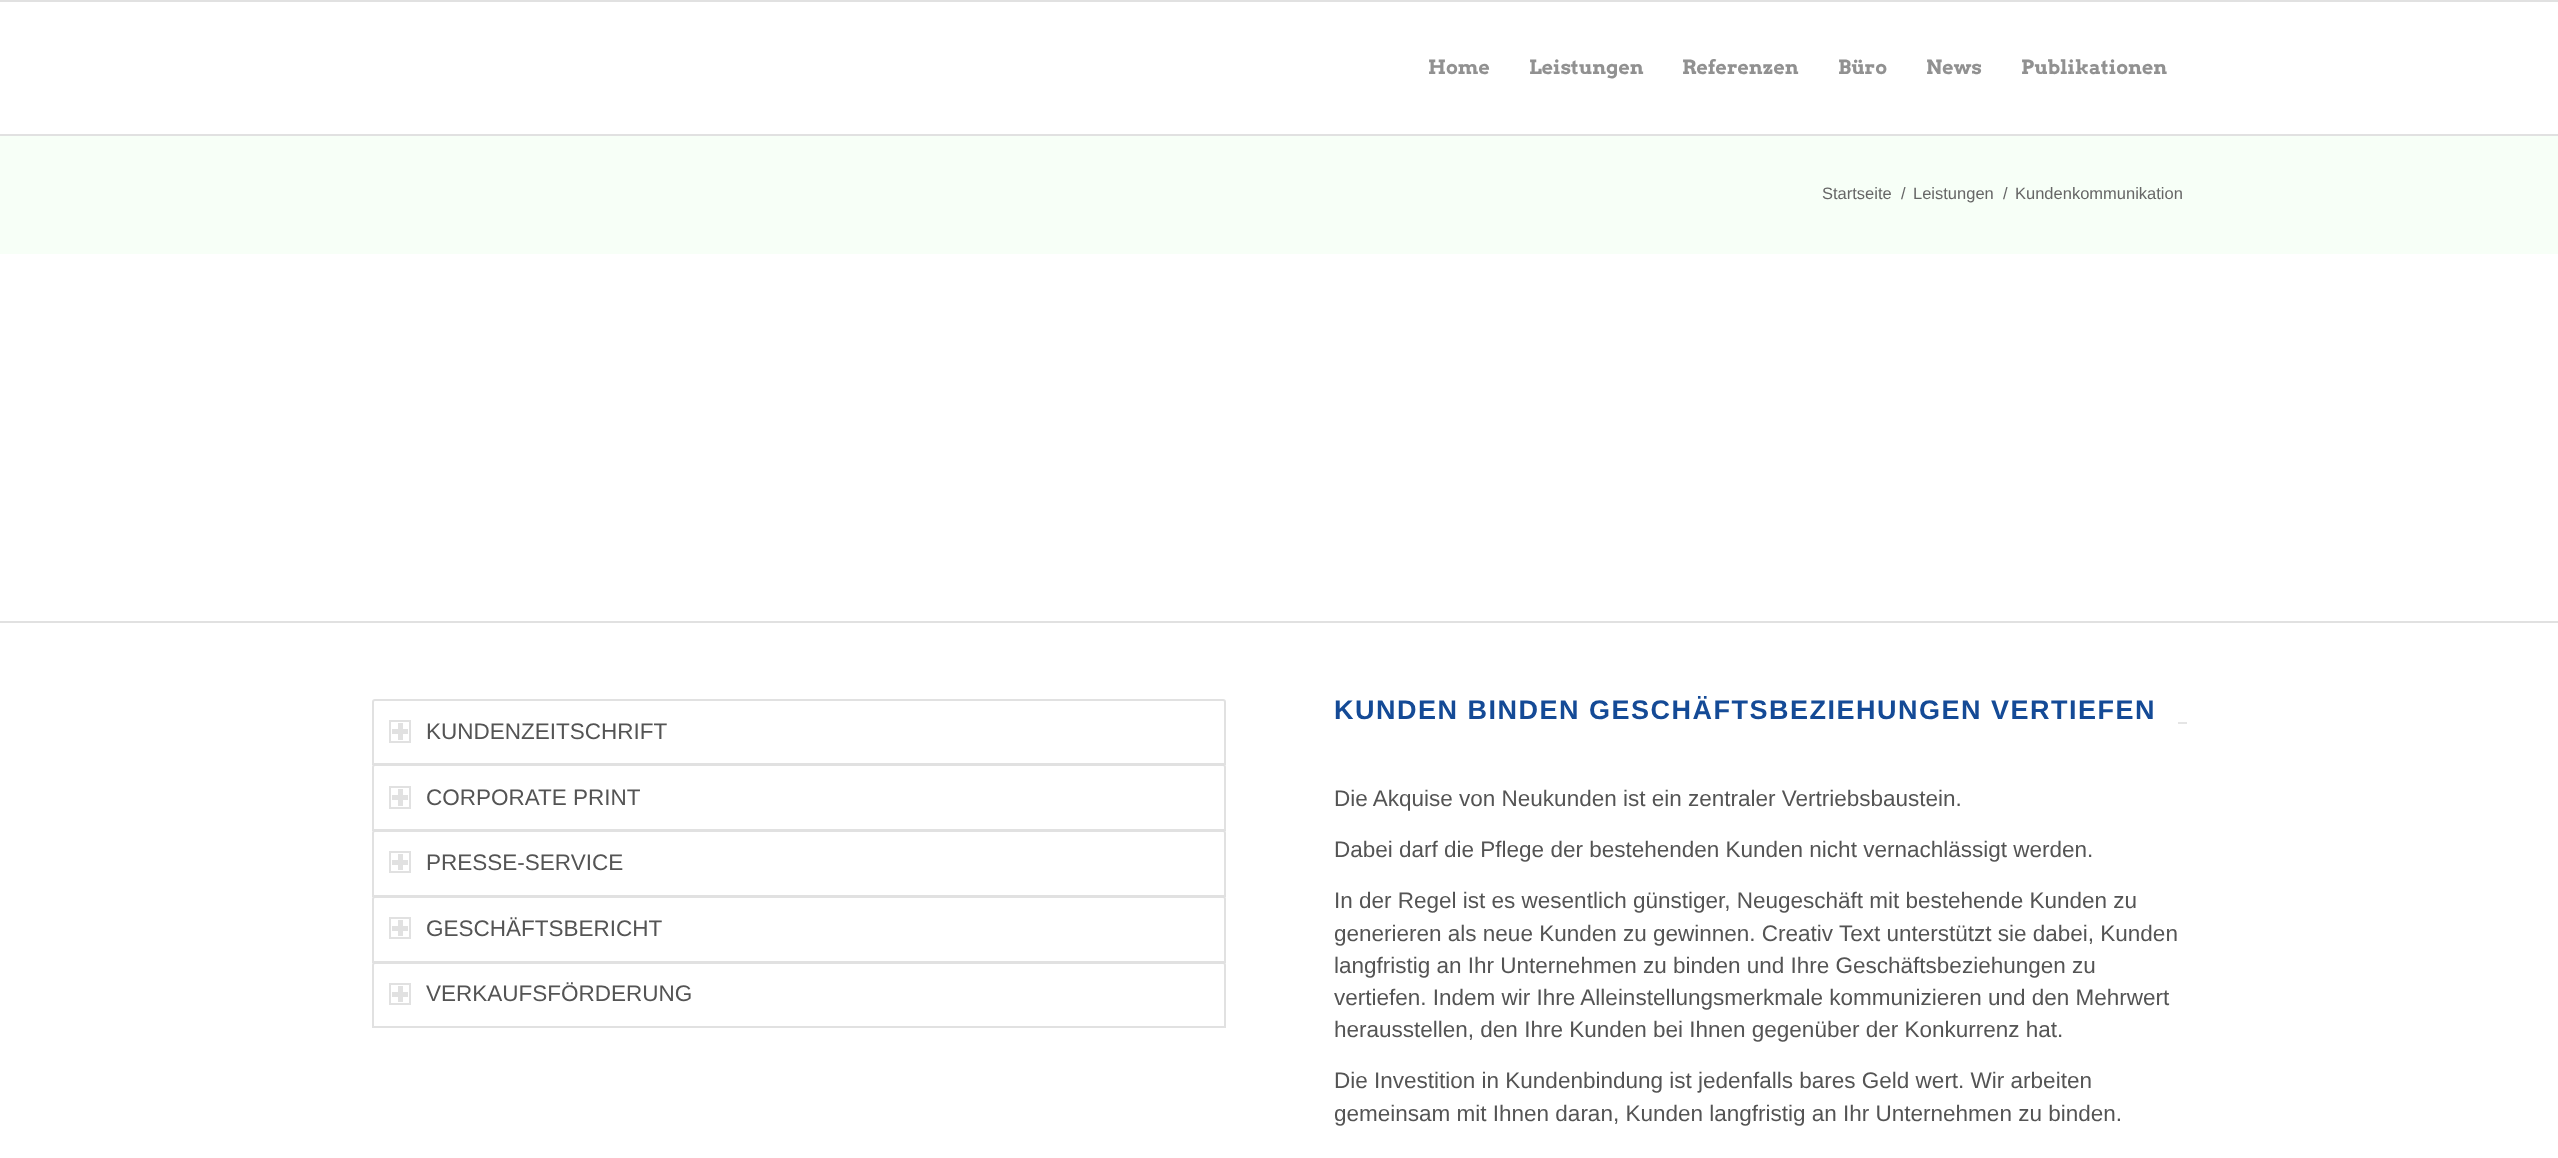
<!DOCTYPE html>
<meta charset="utf-8">
<style>body { margin: 0 } canvas { display: block }</style>
<canvas id="canvas" width="2558" height="1158"></canvas>
<script>
window.onload = function () {
    const canvas = document.getElementById('canvas');
    const context = canvas.getContext('2d');
    context.miterLimit = 4;
    context.fontKerning = 'normal';

    context.fillStyle = 'rgb(255, 255, 255)';
    context.fillRect(0, 0, 2558, 1158);
    context.fillStyle = 'rgb(225, 225, 225)';
    context.fillRect(0, 0, 2558, 2);
    context.fillRect(0, 134, 2558, 2);
    context.fillStyle = 'rgb(247, 255, 247)';
    context.fillRect(0, 136, 2558, 118);
    context.fillStyle = 'rgb(225, 225, 225)';
    context.fillRect(0, 621, 2558, 2);
    context.beginPath();
    context.roundRect(373, 700, 852, 64, [2, 2, 0, 0]);
    context.strokeStyle = 'rgb(225, 225, 225)';
    context.lineWidth = 2;
    context.stroke();
    context.strokeRect(390, 721, 20, 21);
    context.fillRect(398, 723, 5, 17);
    context.fillRect(392, 729, 16, 5);
    context.fillStyle = 'rgb(255, 255, 255)';
    context.beginPath();
    context.roundRect(373, 765, 852, 65, [2, 2, 0, 0]);
    context.fill();
    context.stroke();
    context.strokeRect(390, 787, 20, 21);
    context.fillStyle = 'rgb(225, 225, 225)';
    context.fillRect(398, 789, 5, 17);
    context.fillRect(392, 795, 16, 5);
    context.fillStyle = 'rgb(255, 255, 255)';
    context.beginPath();
    context.roundRect(373, 831, 852, 65, [2, 2, 0, 0]);
    context.fill();
    context.stroke();
    context.strokeRect(390, 852, 20, 20);
    context.fillStyle = 'rgb(225, 225, 225)';
    context.fillRect(398, 854, 5, 16);
    context.fillRect(392, 860, 16, 5);
    context.fillStyle = 'rgb(255, 255, 255)';
    context.beginPath();
    context.roundRect(373, 897, 852, 65, [2, 2, 0, 0]);
    context.fill();
    context.stroke();
    context.strokeRect(390, 918, 20, 20);
    context.fillStyle = 'rgb(225, 225, 225)';
    context.fillRect(398, 920, 5, 16);
    context.fillRect(392, 926, 16, 5);
    context.fillStyle = 'rgb(255, 255, 255)';
    context.beginPath();
    context.roundRect(373, 963, 852, 64, [2, 2, 0, 0]);
    context.fill();
    context.stroke();
    context.strokeRect(390, 984, 20, 20);
    context.fillStyle = 'rgb(225, 225, 225)';
    context.fillRect(398, 986, 5, 16);
    context.fillRect(392, 992, 16, 5);
    context.fillStyle = 'rgb(229, 229, 229)';
    context.fillRect(2178, 722, 9, 2);
    context.font = 'bold 19.5px Arvo';
    context.fillStyle = 'rgb(145, 145, 145)';
    context.fillText('Home', 1428, 74);
    context.fillText('Leistungen', 1529, 74);
    context.fillText('Referenzen', 1682, 74);
    context.fillText('Büro', 1838, 74);
    context.fillText('News', 1926, 74);
    context.fillText('Publikationen', 2021, 74);
    context.font = '16.5px Liberation Sans';
    context.fillStyle = 'rgb(102, 102, 102)';
    context.fillText('Startseite', 1822, 199);
    context.fillText('/', 1901, 199);
    context.fillText('Leistungen', 1913, 199);
    context.fillText('/', 2003, 199);
    context.fillText('Kundenkommunikation', 2015, 199);
    context.font = '22.5px Liberation Sans';
    context.fillStyle = 'rgb(84, 84, 84)';
    context.fillText('KUNDENZEITSCHRIFT', 426, 739);
    context.fillText('CORPORATE PRINT', 426, 805);
    context.fillText('PRESSE-SERVICE', 426, 870);
    context.fillText('GESCHÄFTSBERICHT', 426, 936);
    context.fillText('VERKAUFSFÖRDERUNG', 426, 1001);
    context.letterSpacing = '1.5px';
    context.font = 'bold 27px Liberation Sans';
    context.fillStyle = 'rgb(20, 74, 150)';
    context.fillText('KUNDEN BINDEN GESCHÄFTSBEZIEHUNGEN VERTIEFEN', 1334, 719);
    context.letterSpacing = '0px';
    context.font = '22.5px Liberation Sans';
    context.fillStyle = 'rgb(84, 84, 84)';
    context.fillText('Die Akquise von Neukunden ist ein zentraler Vertriebsbaustein.', 1334, 806);
    context.fillText('Dabei darf die Pflege der bestehenden Kunden nicht vernachlässigt werden.', 1334, 857);
    context.fillText('In der Regel ist es wesentlich günstiger, Neugeschäft mit bestehende Kunden zu', 1334, 908);
    context.fillText('generieren als neue Kunden zu gewinnen. Creativ Text unterstützt sie dabei, Kunden', 1334, 941);
    context.fillText('langfristig an Ihr Unternehmen zu binden und Ihre Geschäftsbeziehungen zu', 1334, 973);
    context.fillText('vertiefen. Indem wir Ihre Alleinstellungsmerkmale kommunizieren und den Mehrwert', 1334, 1005);
    context.fillText('herausstellen, den Ihre Kunden bei Ihnen gegenüber der Konkurrenz hat.', 1334, 1037);
    context.fillText('Die Investition in Kundenbindung ist jedenfalls bares Geld wert. Wir arbeiten', 1334, 1088);
    context.fillText('gemeinsam mit Ihnen daran, Kunden langfristig an Ihr Unternehmen zu binden.', 1334, 1121);
};
</script>
